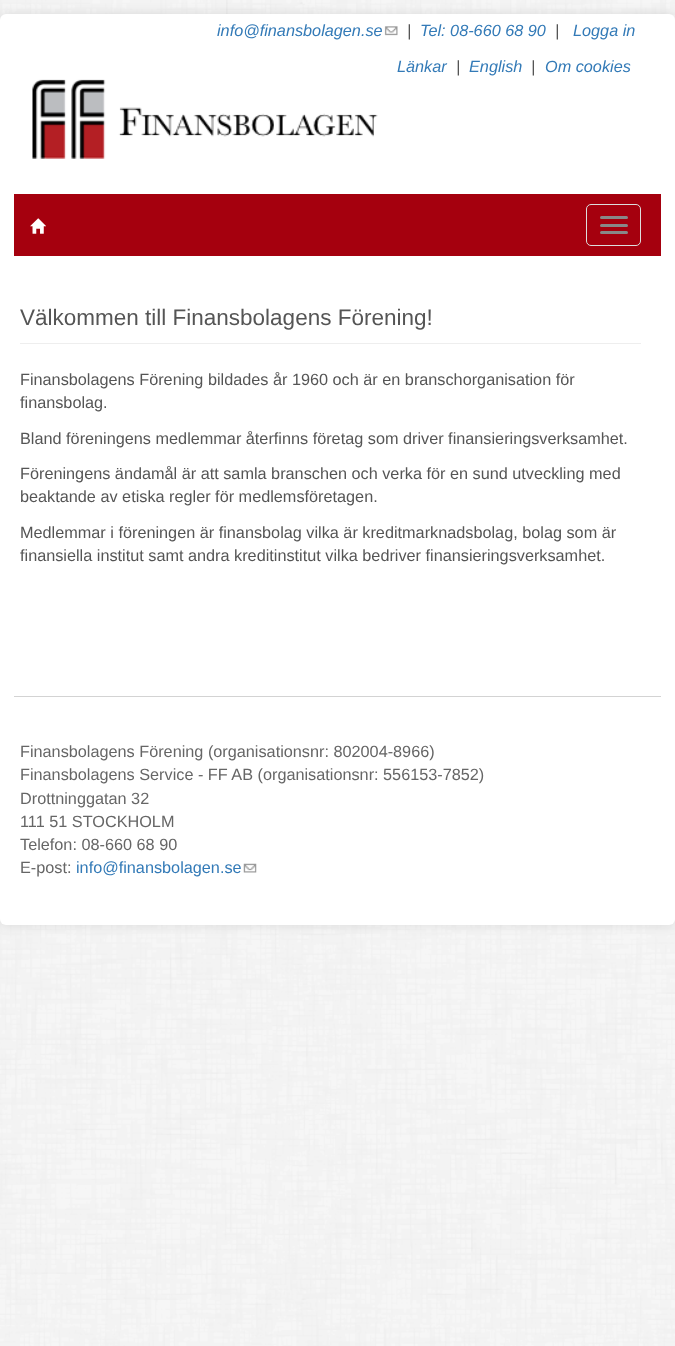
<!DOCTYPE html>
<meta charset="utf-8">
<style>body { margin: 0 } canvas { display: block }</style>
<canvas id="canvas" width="675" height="1346"></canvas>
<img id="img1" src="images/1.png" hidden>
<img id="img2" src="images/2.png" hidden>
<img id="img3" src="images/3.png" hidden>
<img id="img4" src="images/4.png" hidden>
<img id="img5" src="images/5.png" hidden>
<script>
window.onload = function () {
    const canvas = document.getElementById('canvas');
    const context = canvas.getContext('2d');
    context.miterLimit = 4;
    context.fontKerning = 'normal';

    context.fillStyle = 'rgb(255, 255, 255)';
    context.fillRect(0, 0, 675, 1346);
    context.drawImage(document.getElementById('img1'), 0, 0, 675, 1346);
    context.fillStyle = 'rgba(0, 0, 0, 0.1)';
    context.filter = 'blur(6px)';
    context.beginPath();
    context.roundRect(0, 14, 675, 911, 6);
    context.fill();
    context.filter = 'none';
    context.fillStyle = 'rgb(255, 255, 255)';
    context.beginPath();
    context.roundRect(0, 14, 675, 911, 6);
    context.fill();
    context.drawImage(document.getElementById('img2'), 384, 26, 14, 10);
    context.drawImage(document.getElementById('img3'), 32, 79, 346, 80);
    context.fillStyle = 'rgb(165, 0, 14)';
    context.fillRect(14, 194, 647, 62);
    context.drawImage(document.getElementById('img4'), 30, 218, 16, 16);
    context.beginPath();
    context.roundRect(586.5, 204.5, 54, 41, 4.5);
    context.strokeStyle = 'rgb(221, 221, 221)';
    context.stroke();
    context.fillStyle = 'rgb(136, 136, 136)';
    context.beginPath();
    context.roundRect(600, 216, 28, 3, 1.5);
    context.fill();
    context.beginPath();
    context.roundRect(600, 224, 28, 3, 1.5);
    context.fill();
    context.beginPath();
    context.roundRect(600, 231, 28, 3, 1.5);
    context.fill();
    context.fillStyle = 'rgb(238, 238, 238)';
    context.fillRect(20, 343, 621, 1);
    context.fillStyle = 'rgb(211, 211, 211)';
    context.fillRect(14, 696, 647, 1);
    context.drawImage(document.getElementById('img5'), 243, 863, 14, 10);
    context.font = 'italic 16.25px Liberation Sans';
    context.fillStyle = 'rgb(51, 122, 183)';
    context.fillText('info@finansbolagen.se', 217, 36);
    context.fillStyle = 'rgb(85, 85, 85)';
    context.fillText('|', 407, 36);
    context.fillStyle = 'rgb(51, 122, 183)';
    context.fillText('Tel: 08-660 68 90', 420, 36);
    context.fillStyle = 'rgb(85, 85, 85)';
    context.fillText('|', 555, 36);
    context.fillStyle = 'rgb(51, 122, 183)';
    context.fillText('Logga in', 573, 36);
    context.fillText('Länkar', 397, 72);
    context.fillStyle = 'rgb(85, 85, 85)';
    context.fillText('|', 456, 72);
    context.fillStyle = 'rgb(51, 122, 183)';
    context.fillText('English', 469, 72);
    context.fillStyle = 'rgb(85, 85, 85)';
    context.fillText('|', 531, 72);
    context.fillStyle = 'rgb(51, 122, 183)';
    context.fillText('Om cookies', 545, 72);
    context.font = '22.5px Liberation Sans';
    context.fillStyle = 'rgb(85, 85, 85)';
    context.fillText('Välkommen till Finansbolagens Förening!', 20, 325);
    context.font = '16.25px Liberation Sans';
    context.fillText('Finansbolagens Förening bildades år 1960 och är en branschorganisation för', 20, 385);
    context.fillText('finansbolag.', 20, 408);
    context.fillText('Bland föreningens medlemmar återfinns företag som driver finansieringsverksamhet.', 20, 444);
    context.fillText('Föreningens ändamål är att samla branschen och verka för en sund utveckling med', 20, 479);
    context.fillText('beaktande av etiska regler för medlemsföretagen.', 20, 502);
    context.fillText('Medlemmar i föreningen är finansbolag vilka är kreditmarknadsbolag, bolag som är', 20, 538);
    context.fillText('finansiella institut samt andra kreditinstitut vilka bedriver finansieringsverksamhet.', 20, 561);
    context.fillStyle = 'rgb(102, 102, 102)';
    context.fillText('Finansbolagens Förening (organisationsnr: 802004-8966)', 20, 757);
    context.fillText('Finansbolagens Service - FF AB (organisationsnr: 556153-7852)', 20, 780);
    context.fillText('Drottninggatan 32', 20, 804);
    context.fillText('111 51 STOCKHOLM', 20, 827);
    context.fillText('Telefon: 08-660 68 90', 20, 850);
    context.fillText('E-post:', 20, 873);
    context.fillStyle = 'rgb(51, 122, 183)';
    context.fillText('info@finansbolagen.se', 76, 873);
};
</script>
